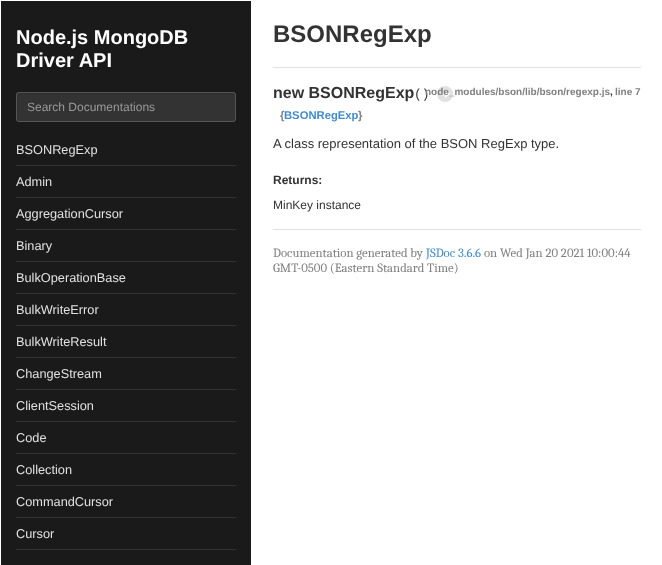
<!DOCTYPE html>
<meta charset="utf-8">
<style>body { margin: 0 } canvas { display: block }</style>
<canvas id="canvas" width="662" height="565"></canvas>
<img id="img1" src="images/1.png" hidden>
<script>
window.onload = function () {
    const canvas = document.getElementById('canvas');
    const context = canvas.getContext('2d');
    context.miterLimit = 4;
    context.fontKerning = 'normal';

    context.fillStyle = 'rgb(255, 255, 255)';
    context.fillRect(0, 0, 662, 565);
    context.fillStyle = 'rgb(26, 26, 26)';
    context.fillRect(1, 1, 250, 564);
    context.fillStyle = 'rgb(51, 51, 51)';
    context.beginPath();
    context.roundRect(16, 92, 220, 30, 3);
    context.fill();
    context.fillStyle = 'rgb(47, 47, 47)';
    context.beginPath();
    context.moveTo(19, 94);
    context.lineTo(233, 94);
    context.bezierCurveTo(234, 94, 235, 95, 235, 96);
    context.bezierCurveTo(235, 95, 235, 93, 233, 93);
    context.lineTo(19, 93);
    context.lineTo(18, 94);
    context.lineTo(17, 96);
    context.bezierCurveTo(17, 95, 18, 94, 19, 94);
    context.closePath();
    context.fill();
    context.beginPath();
    context.roundRect(16.5, 92.5, 219, 29, 2.5);
    context.strokeStyle = 'rgb(85, 85, 85)';
    context.stroke();
    context.fillStyle = 'rgb(51, 51, 51)';
    context.fillRect(16, 165, 220, 1);
    context.fillRect(16, 197, 220, 1);
    context.fillRect(16, 229, 220, 1);
    context.fillRect(16, 261, 220, 1);
    context.fillRect(16, 293, 220, 1);
    context.fillRect(16, 325, 220, 1);
    context.fillRect(16, 357, 220, 1);
    context.fillRect(16, 389, 220, 1);
    context.fillRect(16, 421, 220, 1);
    context.fillRect(16, 453, 220, 1);
    context.fillRect(16, 485, 220, 1);
    context.fillRect(16, 517, 220, 1);
    context.fillRect(16, 549, 220, 1);
    context.fillStyle = 'rgb(225, 225, 225)';
    context.fillRect(273, 67, 368, 1);
    context.drawImage(document.getElementById('img1'), 437, 86, 16, 16);
    context.fillRect(273, 229, 368, 1);
    context.font = 'bold 20px Liberation Sans';
    context.fillStyle = 'rgb(255, 255, 255)';
    context.fillText('Node.js MongoDB', 16, 44);
    context.fillText('Driver API', 16, 67);
    context.font = '12px Liberation Sans';
    context.fillStyle = 'rgb(153, 153, 153)';
    context.fillText('Search Documentations', 27, 111);
    context.font = '12.75px Liberation Sans';
    context.fillStyle = 'rgb(225, 225, 225)';
    context.fillText('BSONRegExp', 16, 154);
    context.fillText('Admin', 16, 186);
    context.fillText('AggregationCursor', 16, 218);
    context.fillText('Binary', 16, 250);
    context.fillText('BulkOperationBase', 16, 282);
    context.fillText('BulkWriteError', 16, 314);
    context.fillText('BulkWriteResult', 16, 346);
    context.fillText('ChangeStream', 16, 378);
    context.fillText('ClientSession', 16, 410);
    context.fillText('Code', 16, 442);
    context.fillText('Collection', 16, 474);
    context.fillText('CommandCursor', 16, 506);
    context.fillText('Cursor', 16, 538);
    context.font = 'bold 24px Liberation Sans';
    context.fillStyle = 'rgb(51, 51, 51)';
    context.fillText('BSONRegExp', 273, 42);
    context.font = 'bold 16px Liberation Sans';
    context.fillText('new BSONRegExp', 273, 98);
    context.font = '13px Liberation Mono';
    context.fillText('()', 414, 98);
    context.font = 'bold 11.25px Liberation Sans';
    context.fillStyle = 'rgb(128, 128, 128)';
    context.fillText('{', 280, 119);
    context.fillStyle = 'rgb(66, 139, 202)';
    context.fillText('BSONRegExp', 284, 119);
    context.fillStyle = 'rgb(128, 128, 128)';
    context.fillText('}', 358, 119);
    context.font = 'bold 10px Liberation Sans';
    context.fillText('node_modules/bson/lib/bson/regexp.js', 425, 95);
    context.fillStyle = 'rgb(51, 51, 51)';
    context.fillText(',', 610, 95);
    context.fillStyle = 'rgb(128, 128, 128)';
    context.fillText('line 7', 615, 95);
    context.font = '13px Liberation Sans';
    context.fillStyle = 'rgb(51, 51, 51)';
    context.fillText('A class representation of the BSON RegExp type.', 273, 148);
    context.font = 'bold 12px Liberation Sans';
    context.fillText('Returns:', 273, 184);
    context.font = '12px Liberation Sans';
    context.fillText('MinKey instance', 273, 209);
    context.font = '12.75px Caladea';
    context.fillStyle = 'rgb(128, 128, 128)';
    context.fillText('Documentation generated by', 273, 257);
    context.fillStyle = 'rgb(66, 139, 202)';
    context.fillText('JSDoc 3.6.6', 426, 257);
    context.fillStyle = 'rgb(128, 128, 128)';
    context.fillText('on Wed Jan 20 2021 10:00:44', 484, 257);
    context.fillText('GMT-0500 (Eastern Standard Time)', 273, 272);
};
</script>
